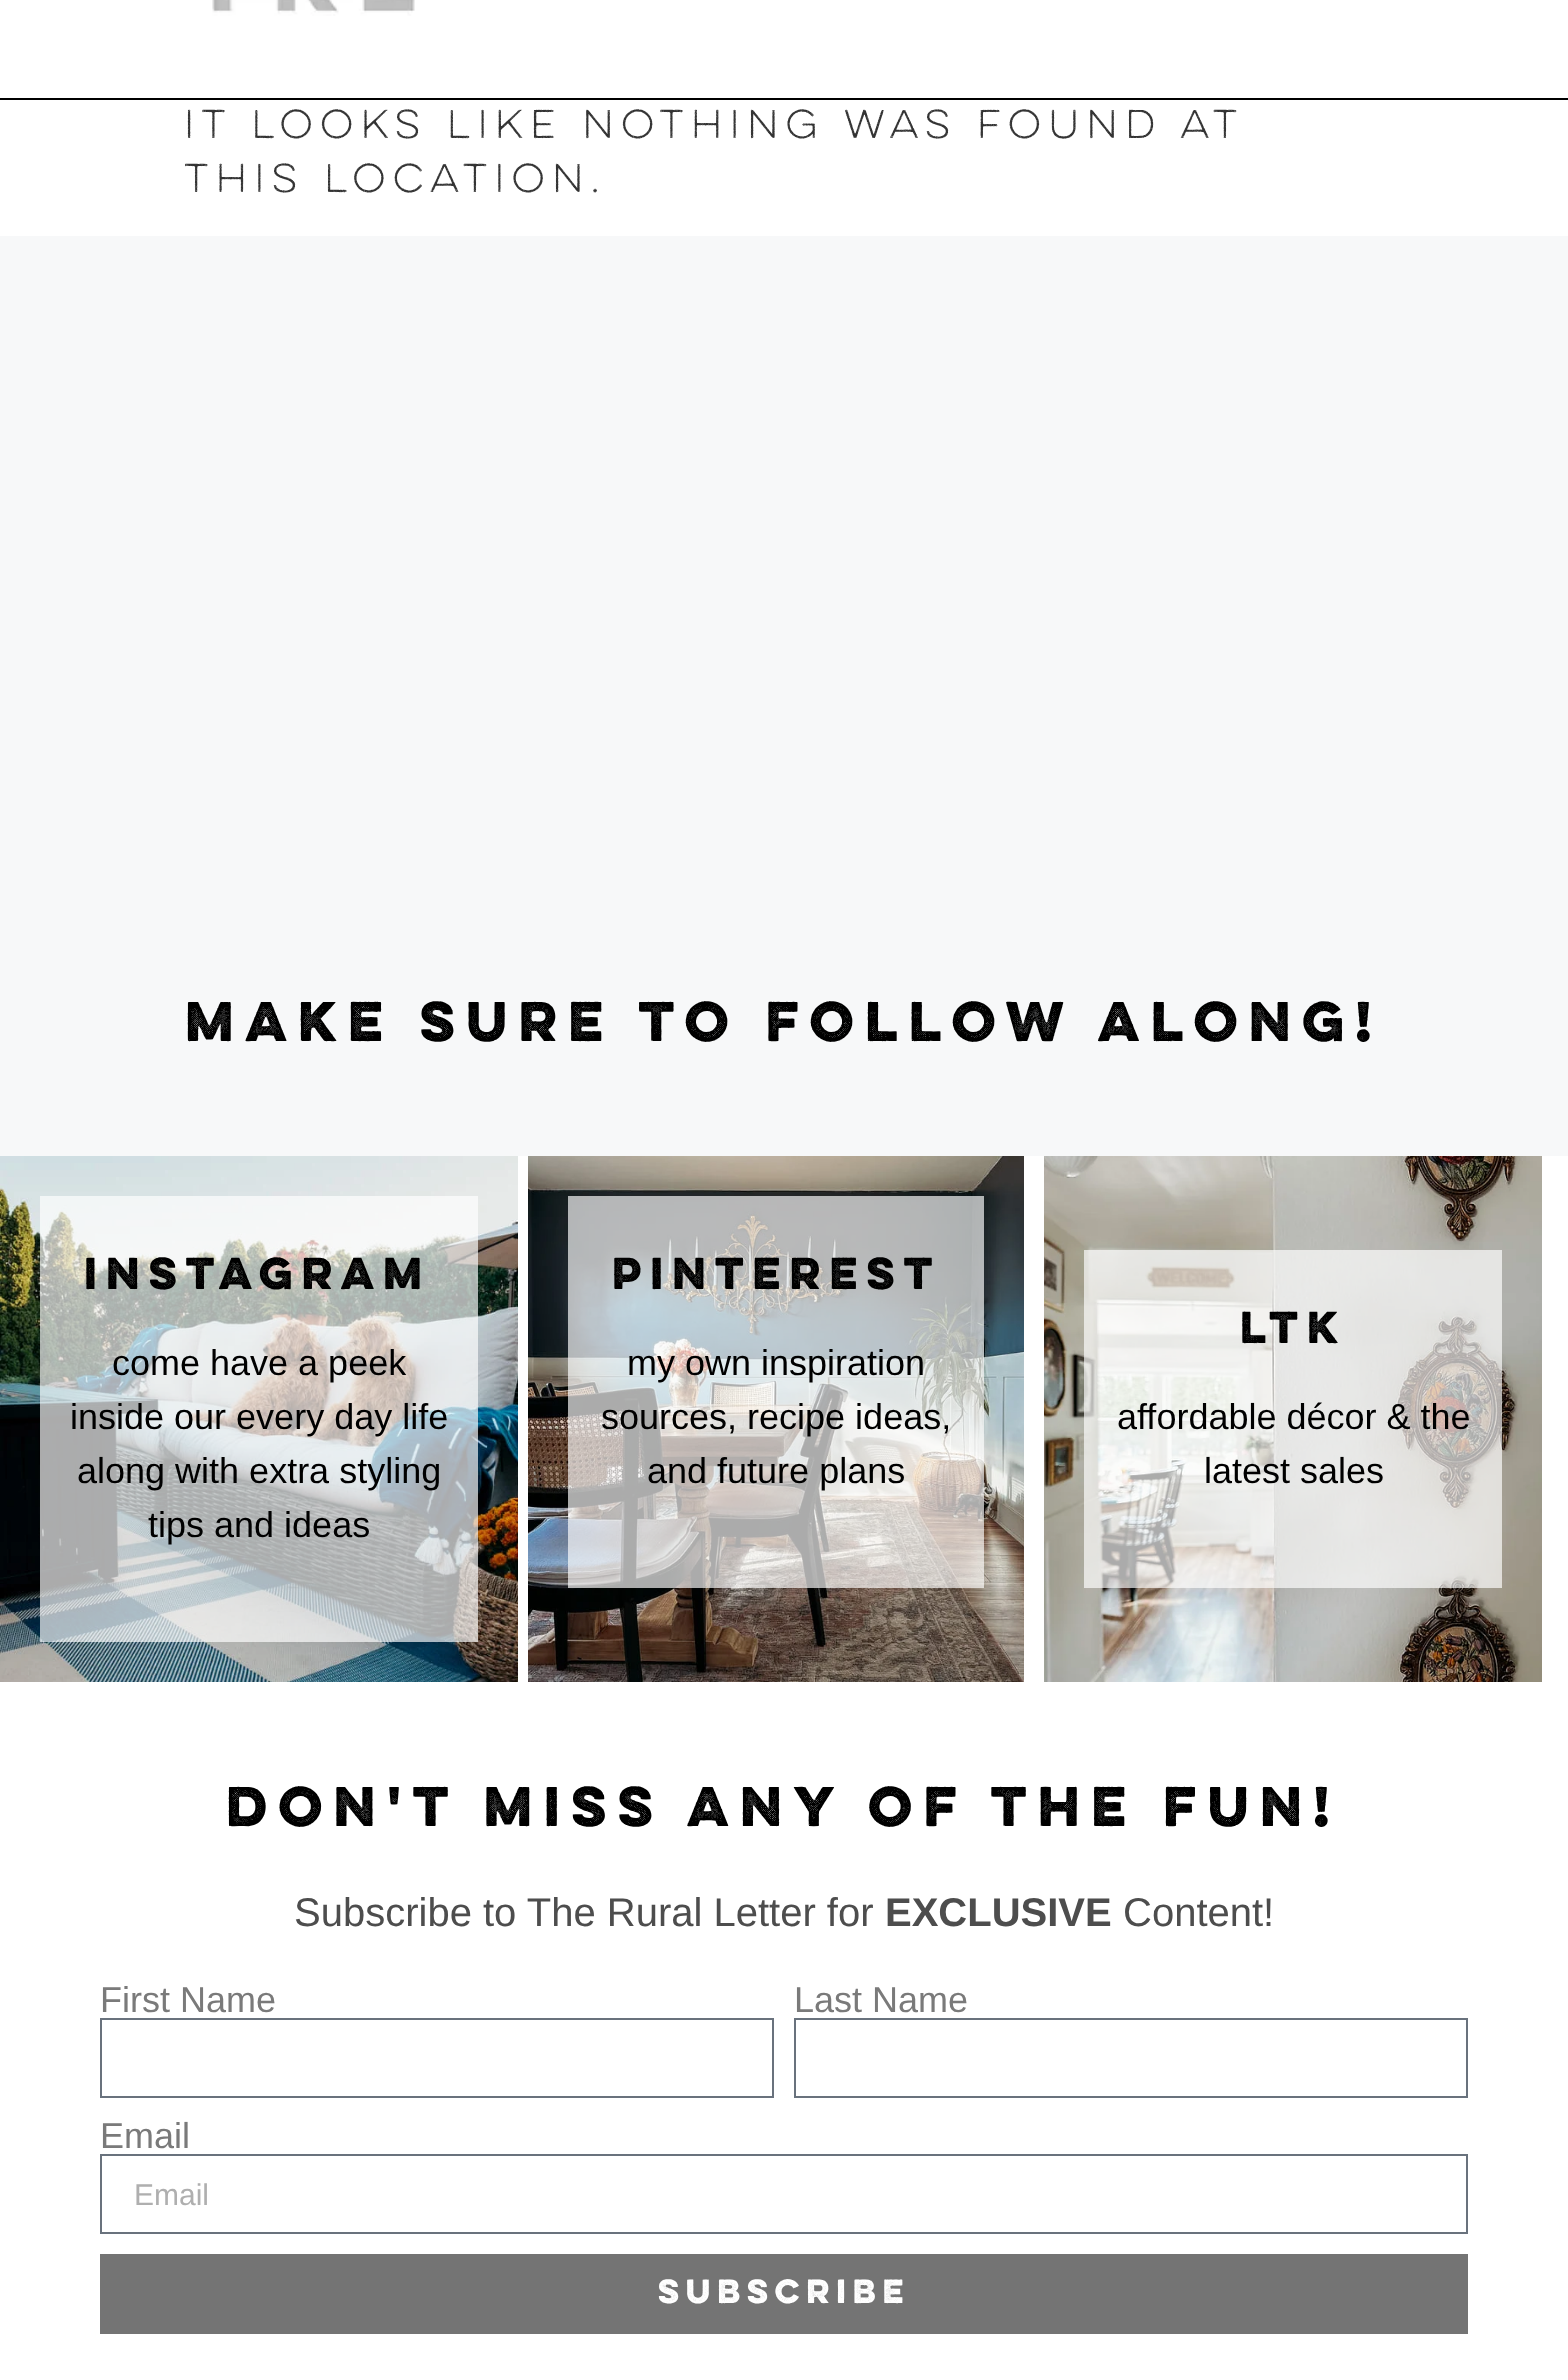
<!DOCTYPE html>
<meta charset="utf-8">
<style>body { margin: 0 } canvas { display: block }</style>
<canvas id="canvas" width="1568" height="2380"></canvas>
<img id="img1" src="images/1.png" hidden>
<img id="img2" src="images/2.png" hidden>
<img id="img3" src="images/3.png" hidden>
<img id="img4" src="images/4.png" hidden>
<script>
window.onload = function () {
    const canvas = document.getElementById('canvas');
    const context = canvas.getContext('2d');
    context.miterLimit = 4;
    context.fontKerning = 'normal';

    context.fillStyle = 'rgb(255, 255, 255)';
    context.fillRect(0, 0, 1568, 2380);
    context.fillStyle = 'rgb(0, 0, 0)';
    context.fillRect(0, 98, 1568, 2);
    context.drawImage(document.getElementById('img1'), 212, 0, 203, 16);
    context.fillStyle = 'rgb(247, 248, 249)';
    context.fillRect(0, 236, 1568, 920);
    context.drawImage(document.getElementById('img2'), 0, 1156, 518, 526);
    context.fillStyle = 'rgba(255, 255, 255, 0.67)';
    context.fillRect(40, 1196, 438, 446);
    context.drawImage(document.getElementById('img3'), 528, 1156, 496, 526);
    context.fillRect(568, 1196, 416, 392);
    context.drawImage(document.getElementById('img4'), 1044, 1156, 498, 526);
    context.fillRect(1084, 1250, 418, 338);
    context.strokeStyle = 'rgb(105, 114, 125)';
    context.lineWidth = 2;
    context.strokeRect(101, 2019, 672, 78);
    context.strokeRect(795, 2019, 672, 78);
    context.strokeRect(101, 2155, 1366, 78);
    context.fillStyle = 'rgb(116, 116, 116)';
    context.fillRect(100, 2254, 1368, 80);
    context.wordSpacing = '-0.25px';
    context.font = '36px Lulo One';
    context.fillStyle = 'rgb(51, 51, 51)';
    context.fillText('It looks like nothing was found at', 184, 138);
    context.wordSpacing = '0px';
    context.fillText('this location.', 184, 192);
    context.font = 'bold 50px Lulo One';
    context.fillStyle = 'rgb(0, 0, 0)';
    context.fillText('MAKE SURE TO FOLLOW ALONG!', 185, 1041);
    context.font = 'bold 40px Lulo One';
    context.fillText('INSTAGRAM', 84, 1289);
    context.font = '36px Liberation Sans';
    context.fillText('come have a peek', 112, 1375);
    context.fillText('inside our every day life', 70, 1429);
    context.fillText('along with extra styling', 77, 1483);
    context.fillText('tips and ideas', 148, 1537);
    context.font = 'bold 40px Lulo One';
    context.fillText('PINTEREST', 612, 1289);
    context.font = '36px Liberation Sans';
    context.fillText('my own inspiration', 627, 1375);
    context.fillText('sources, recipe ideas,', 601, 1429);
    context.fillText('and future plans', 647, 1483);
    context.font = 'bold 40px Lulo One';
    context.fillText('LTK', 1240, 1343);
    context.font = '36px Liberation Sans';
    context.fillText('affordable décor & the', 1117, 1429);
    context.fillText('latest sales', 1204, 1483);
    context.font = 'bold 50px Lulo One';
    context.fillText('DON\'T MISS ANY OF THE FUN!', 226, 1826);
    context.font = '40px Liberation Sans';
    context.fillStyle = 'rgb(77, 77, 77)';
    context.fillText('Subscribe to The Rural Letter for', 294, 1926);
    context.font = 'bold 40px Liberation Sans';
    context.fillText('EXCLUSIVE', 885, 1926);
    context.font = '40px Liberation Sans';
    context.fillText('Content!', 1123, 1926);
    context.font = '36px Liberation Sans';
    context.fillStyle = 'rgb(122, 122, 122)';
    context.fillText('First Name', 100, 2012);
    context.fillText('Last Name', 794, 2012);
    context.fillText('Email', 100, 2148);
    context.font = '30px Liberation Sans';
    context.fillStyle = 'rgb(175, 175, 175)';
    context.fillText('Email', 134, 2205);
    context.font = 'bold 30px Lulo One';
    context.fillStyle = 'rgb(255, 255, 255)';
    context.fillText('Subscribe', 658, 2303);
};
</script>
